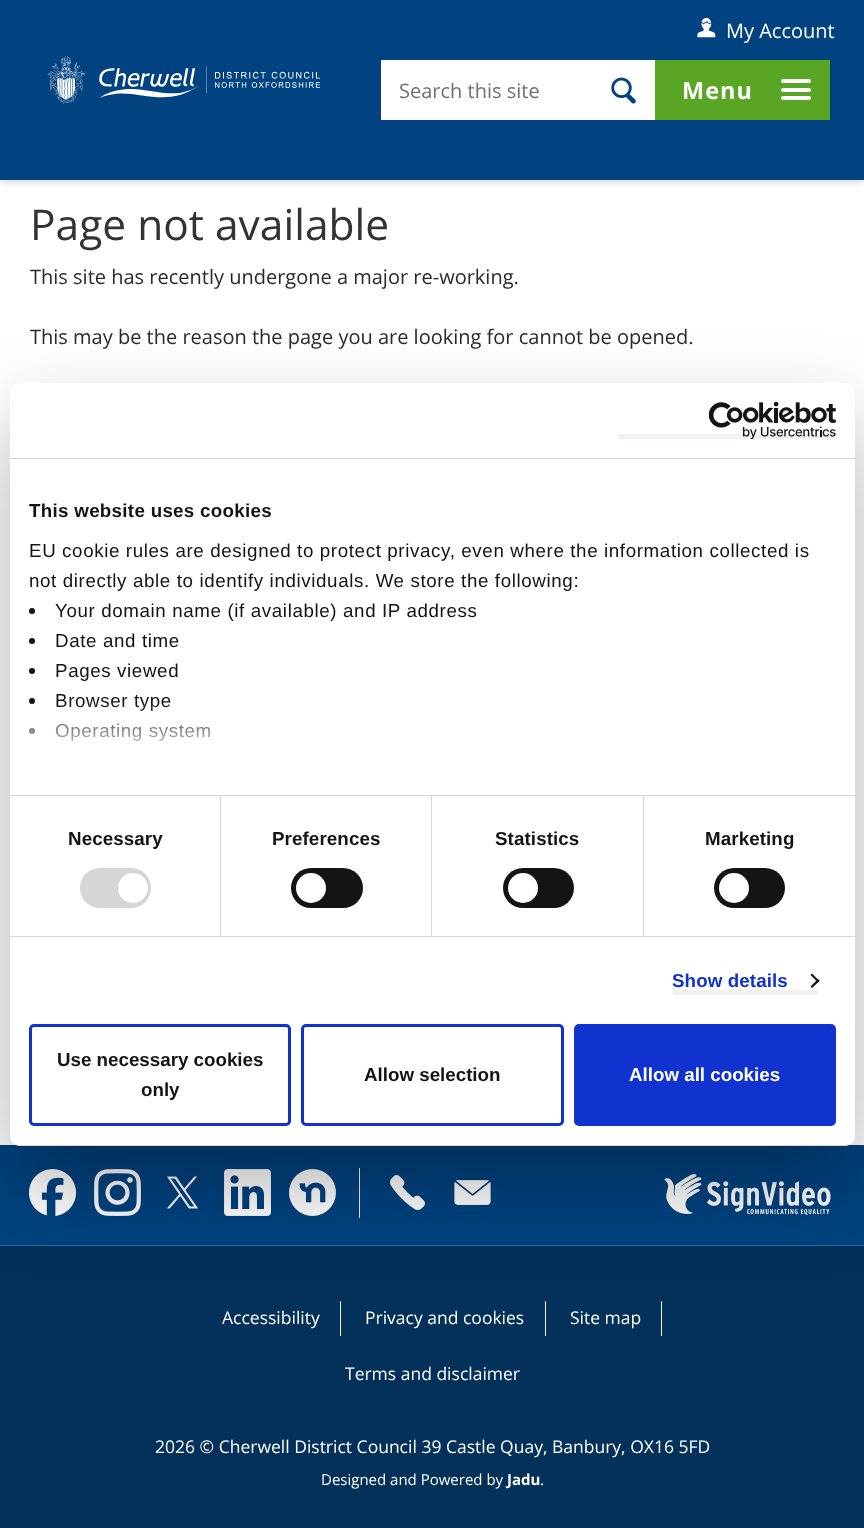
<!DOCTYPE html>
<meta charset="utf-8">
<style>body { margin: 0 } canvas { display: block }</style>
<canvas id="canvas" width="864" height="1528"></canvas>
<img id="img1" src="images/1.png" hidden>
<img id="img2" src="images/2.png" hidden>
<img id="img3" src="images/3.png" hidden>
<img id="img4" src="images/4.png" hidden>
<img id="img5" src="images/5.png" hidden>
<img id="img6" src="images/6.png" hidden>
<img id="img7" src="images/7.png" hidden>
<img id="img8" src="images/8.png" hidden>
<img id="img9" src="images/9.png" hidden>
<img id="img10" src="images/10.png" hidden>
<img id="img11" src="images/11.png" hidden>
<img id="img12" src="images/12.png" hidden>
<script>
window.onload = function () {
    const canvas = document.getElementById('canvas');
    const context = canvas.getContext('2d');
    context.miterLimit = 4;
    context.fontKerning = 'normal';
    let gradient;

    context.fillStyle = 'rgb(3, 49, 90)';
    context.fillRect(0, 0, 864, 1528);
    context.fillStyle = 'rgb(255, 255, 255)';
    context.fillRect(0, 180, 864, 965);
    context.fillStyle = 'rgba(3, 49, 90, 0.3)';
    context.filter = 'blur(5px)';
    context.beginPath();
    context.rect(0, 0, 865, 180);
    context.fill();
    context.filter = 'none';
    context.fillStyle = 'rgb(0, 67, 128)';
    context.fillRect(0, 0, 864, 180);
    context.drawImage(document.getElementById('img1'), 697, 18, 19, 20);
    context.fillStyle = 'rgb(255, 255, 255)';
    context.fillRect(381, 60, 274, 60);
    context.drawImage(document.getElementById('img2'), 611, 77, 25, 27);
    context.drawImage(document.getElementById('img3'), 47, 56, 274, 48);
    context.fillStyle = 'rgb(89, 165, 36)';
    context.fillRect(655, 60, 175, 60);
    context.fillStyle = 'rgb(255, 255, 255)';
    context.beginPath();
    context.roundRect(781, 88, 30, 4, 2);
    context.fill();
    context.beginPath();
    context.roundRect(781, 79, 30, 4, 2);
    context.fill();
    context.beginPath();
    context.roundRect(781, 96, 30, 4, 2);
    context.fill();
    context.fillStyle = 'rgb(0, 67, 128)';
    context.fillRect(0, 1145, 864, 100);
    context.fillStyle = 'rgb(51, 105, 153)';
    context.fillRect(0, 1245, 864, 1);
    context.drawImage(document.getElementById('img4'), 29, 1169, 47, 47);
    context.drawImage(document.getElementById('img5'), 94, 1169, 47, 47);
    context.drawImage(document.getElementById('img6'), 167, 1176, 31, 33);
    context.drawImage(document.getElementById('img7'), 224, 1169, 47, 47);
    context.drawImage(document.getElementById('img8'), 289, 1169, 47, 47);
    context.fillStyle = 'rgb(240, 242, 240)';
    context.fillRect(359, 1168, 1, 50);
    context.drawImage(document.getElementById('img9'), 390, 1175, 35, 35);
    context.drawImage(document.getElementById('img10'), 454, 1180, 37, 25);
    context.drawImage(document.getElementById('img11'), 664, 1174, 167, 41);
    context.fillRect(340, 1301, 1, 35);
    context.fillRect(545, 1301, 1, 35);
    context.fillRect(661, 1301, 1, 35);
    context.fillStyle = 'rgba(0, 0, 0, 0.3)';
    context.filter = 'blur(42.5px)';
    context.beginPath();
    context.roundRect(10, 423, 845, 763, 10);
    context.fill();
    context.filter = 'none';
    context.fillStyle = 'rgb(255, 255, 255)';
    context.beginPath();
    context.roundRect(10, 383, 845, 763, 10);
    context.fill();
    context.fillStyle = 'rgb(214, 214, 214)';
    context.fillRect(10, 458, 845, 1);
    context.fillStyle = 'rgb(240, 242, 240)';
    context.fillRect(618, 434, 218, 5);
    context.drawImage(document.getElementById('img12'), 709, 401, 127, 38);
    context.fillStyle = 'rgb(214, 214, 214)';
    context.fillRect(10, 795, 845, 1);
    context.fillStyle = 'rgb(20, 20, 20)';
    context.beginPath();
    context.arc(32, 611, 3, 0, 2 * Math.PI);
    context.fill();
    context.beginPath();
    context.arc(32, 641, 3, 0, 2 * Math.PI);
    context.fill();
    context.beginPath();
    context.arc(32, 671, 3, 0, 2 * Math.PI);
    context.fill();
    context.beginPath();
    context.arc(32, 701, 3, 0, 2 * Math.PI);
    context.fill();
    context.beginPath();
    context.arc(32, 731, 3, 0, 2 * Math.PI);
    context.fill();
    context.fillStyle = 'rgb(214, 214, 214)';
    context.fillRect(10, 936, 845, 1);
    context.fillRect(220, 796, 1, 140);
    context.beginPath();
    context.roundRect(80, 868, 71, 40, 20);
    context.fill();
    context.fillStyle = 'rgb(255, 255, 255)';
    context.beginPath();
    context.arc(133, 888, 15, 0, 2 * Math.PI);
    context.fill();
    context.fillStyle = 'rgb(214, 214, 214)';
    context.fillRect(431, 796, 1, 140);
    context.fillStyle = 'rgb(20, 20, 20)';
    context.beginPath();
    context.roundRect(291, 868, 72, 40, 20);
    context.fill();
    context.fillStyle = 'rgb(255, 255, 255)';
    context.beginPath();
    context.arc(311, 888, 15, 0, 2 * Math.PI);
    context.fill();
    context.fillStyle = 'rgb(214, 214, 214)';
    context.fillRect(643, 796, 1, 140);
    context.fillStyle = 'rgb(20, 20, 20)';
    context.beginPath();
    context.roundRect(503, 868, 71, 40, 20);
    context.fill();
    context.fillStyle = 'rgb(255, 255, 255)';
    context.beginPath();
    context.arc(523, 888, 15, 0, 2 * Math.PI);
    context.fill();
    context.fillStyle = 'rgb(20, 20, 20)';
    context.beginPath();
    context.roundRect(714, 868, 71, 40, 20);
    context.fill();
    context.fillStyle = 'rgb(255, 255, 255)';
    context.beginPath();
    context.arc(734, 888, 15, 0, 2 * Math.PI);
    context.fill();
    context.fillStyle = 'rgb(240, 242, 240)';
    context.fillRect(673, 990, 145, 5);
    context.fillStyle = 'rgb(20, 20, 20)';
    context.beginPath();
    context.moveTo(812, 973.5);
    context.lineTo(819.5, 981);
    context.lineTo(818, 982.5);
    context.lineTo(810.5, 975);
    context.closePath();
    context.fill();
    context.beginPath();
    context.moveTo(818, 979);
    context.lineTo(819.5, 981);
    context.lineTo(812, 988);
    context.lineTo(810.5, 986.5);
    context.closePath();
    context.fill();
    context.save();
    context.beginPath();
    context.roundRect(10, 383, 845, 763, 10);
    context.clip();
    context.fillStyle = 'rgb(214, 214, 214)';
    context.fillRect(10, 1145, 845, 1);
    context.restore();
    context.beginPath();
    context.roundRect(30.5, 1025.5, 259, 99, 3.5);
    context.strokeStyle = 'rgb(16, 50, 207)';
    context.lineWidth = 3;
    context.stroke();
    context.beginPath();
    context.roundRect(302.5, 1025.5, 260, 99, 3.5);
    context.stroke();
    context.fillStyle = 'rgb(16, 50, 207)';
    context.beginPath();
    context.roundRect(575.5, 1025.5, 259, 99, 3.5);
    context.fill();
    context.stroke();
    context.font = '20px Open Sans';
    context.fillStyle = 'rgb(255, 255, 255)';
    context.fillText('My Account', 726, 38);
    context.fillStyle = 'rgb(112, 112, 112)';
    context.fillText('Search this site', 399, 98);
    context.letterSpacing = '1px';
    context.font = 'bold 23.5px Open Sans';
    context.fillStyle = 'rgb(255, 255, 255)';
    context.fillText('Menu', 682, 99);
    context.letterSpacing = '0px';
    context.font = '42.5px Open Sans';
    context.fillStyle = 'rgb(51, 51, 51)';
    context.fillText('Page not available', 30, 240);
    context.font = '20px Open Sans';
    context.fillStyle = 'rgb(42, 42, 42)';
    context.fillText('This site has recently undergone a major re-working.', 30, 284);
    context.fillText('This may be the reason the page you are looking for cannot be opened.', 30, 344);
    context.font = '17.5px Open Sans';
    context.fillStyle = 'rgb(255, 255, 255)';
    context.fillText('Accessibility', 222, 1324);
    context.fillText('Privacy and cookies', 365, 1324);
    context.fillText('Site map', 570, 1324);
    context.fillText('Terms and disclaimer', 345, 1380);
    context.fillText('2026 © Cherwell District Council 39 Castle Quay, Banbury, OX16 5FD', 155, 1453);
    context.font = '15px Open Sans';
    context.fillText('Designed and Powered by', 321, 1485);
    context.font = 'bold 15px Open Sans';
    context.fillText('Jadu', 507, 1485);
    context.font = '15px Open Sans';
    context.fillText('.', 540, 1485);
    context.letterSpacing = '0.3px';
    context.font = 'bold 18.75px Liberation Sans';
    context.fillStyle = 'rgb(20, 20, 20)';
    context.fillText('This website uses cookies', 29, 517);
    context.letterSpacing = '0.62px';
    context.font = '18.75px Liberation Sans';
    context.fillText('EU cookie rules are designed to protect privacy, even where the information collected is', 29, 557);
    context.fillText('not directly able to identify individuals. We store the following:', 29, 587);
    context.fillText('Your domain name (if available) and IP address', 55, 617);
    context.fillText('Date and time', 55, 647);
    context.fillText('Pages viewed', 55, 677);
    context.fillText('Browser type', 55, 707);
    context.fillText('Operating system', 55, 737);
    gradient = context.createLinearGradient(424, 795, 424, 702);
    gradient.addColorStop(0, 'rgb(255, 255, 255)');
    gradient.addColorStop(0.5, 'rgba(255, 255, 255, 0.8)');
    gradient.addColorStop(1, 'rgba(255, 255, 255, 0)');
    context.fillStyle = gradient;
    context.fillRect(29, 703, 182, 38);
    context.letterSpacing = '0.1px';
    context.font = 'bold 18.75px Liberation Sans';
    context.fillStyle = 'rgb(20, 20, 20)';
    context.fillText('Necessary', 68, 845);
    context.fillText('Preferences', 272, 845);
    context.fillText('Statistics', 495, 845);
    context.fillText('Marketing', 705, 845);
    context.fillStyle = 'rgb(16, 50, 207)';
    context.fillText('Show details', 672, 987);
    context.letterSpacing = '0px';
    context.fillStyle = 'rgb(20, 20, 20)';
    context.fillText('Use necessary cookies', 57, 1066);
    context.fillText('only', 141, 1096);
    context.fillText('Allow selection', 364, 1081);
    context.fillStyle = 'rgb(255, 255, 255)';
    context.fillText('Allow all cookies', 629, 1081);
};
</script>
